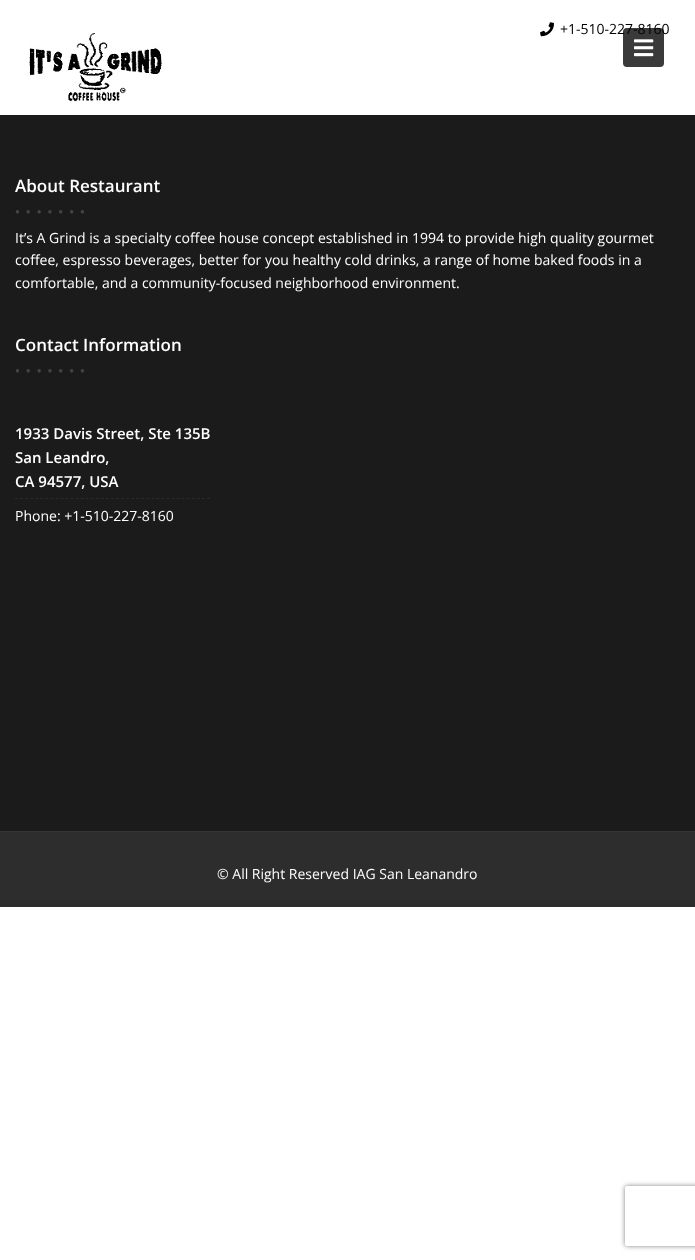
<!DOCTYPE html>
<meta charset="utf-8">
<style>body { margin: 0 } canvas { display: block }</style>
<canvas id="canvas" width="695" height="1260"></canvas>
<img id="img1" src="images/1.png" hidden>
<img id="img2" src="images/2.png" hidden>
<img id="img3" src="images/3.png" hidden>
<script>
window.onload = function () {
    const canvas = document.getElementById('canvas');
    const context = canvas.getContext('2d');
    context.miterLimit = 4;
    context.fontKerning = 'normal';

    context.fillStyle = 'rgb(255, 255, 255)';
    context.fillRect(0, 0, 695, 1260);
    context.drawImage(document.getElementById('img1'), 540, 22, 14, 15);
    context.drawImage(document.getElementById('img2'), 28, 33, 137, 70);
    context.fillStyle = 'rgb(58, 58, 58)';
    context.beginPath();
    context.roundRect(623, 28, 41, 39, 4);
    context.fill();
    context.drawImage(document.getElementById('img3'), 634, 39, 20, 18);
    context.fillStyle = 'rgb(27, 27, 27)';
    context.fillRect(0, 115, 695, 716);
    context.beginPath();
    context.moveTo(15, 498.5);
    context.lineTo(210, 498.5);
    context.strokeStyle = 'rgb(42, 42, 41)';
    context.setLineDash([3, 2.05]);
    context.stroke();
    context.fillStyle = 'rgb(45, 45, 45)';
    context.fillRect(0, 832, 695, 75);
    context.fillStyle = 'rgb(53, 53, 52)';
    context.fillRect(0, 831, 695, 1);
    context.save();
    context.beginPath();
    context.moveTo(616, 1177);
    context.lineTo(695, 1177);
    context.lineTo(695, 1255);
    context.lineTo(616, 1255);
    context.closePath();
    context.moveTo(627, 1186);
    context.lineTo(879, 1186);
    context.bezierCurveTo(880, 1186, 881, 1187, 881, 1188);
    context.lineTo(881, 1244);
    context.bezierCurveTo(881, 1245, 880, 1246, 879, 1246);
    context.lineTo(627, 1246);
    context.bezierCurveTo(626, 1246, 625, 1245, 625, 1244);
    context.lineTo(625, 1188);
    context.bezierCurveTo(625, 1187, 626, 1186, 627, 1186);
    context.closePath();
    context.clip('evenodd');
    context.fillStyle = 'rgb(128, 128, 128)';
    context.filter = 'blur(2.5px)';
    context.beginPath();
    context.roundRect(625, 1186, 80, 60, 2);
    context.fill();
    context.filter = 'none';
    context.restore();
    context.font = '14px Open Sans';
    context.fillStyle = 'rgb(0, 0, 0)';
    context.fillText('+1-510-227-8160', 560, 34);
    context.font = '600 17px Open Sans';
    context.fillStyle = 'rgb(255, 255, 255)';
    context.fillText('About Restaurant', 15, 192);
    context.letterSpacing = '6px';
    context.font = 'bold 8px Liberation Sans';
    context.fillStyle = 'rgb(68, 68, 68)';
    context.fillText('●●●●●●●', 15, 214);
    context.letterSpacing = '0px';
    context.font = '14px Open Sans';
    context.fillStyle = 'rgb(255, 255, 255)';
    context.fillText('It’s A Grind is a specialty coffee house concept established in 1994 to provide high quality gourmet', 15, 243);
    context.fillText('coffee, espresso beverages, better for you healthy cold drinks, a range of home baked foods in a', 15, 265);
    context.fillText('comfortable, and a community-focused neighborhood environment.', 15, 288);
    context.font = '600 17px Open Sans';
    context.fillText('Contact Information', 15, 351);
    context.letterSpacing = '6px';
    context.font = 'bold 8px Liberation Sans';
    context.fillStyle = 'rgb(68, 68, 68)';
    context.fillText('●●●●●●●', 15, 373);
    context.letterSpacing = '0px';
    context.font = '600 15px Open Sans';
    context.fillStyle = 'rgb(255, 255, 255)';
    context.fillText('1933 Davis Street, Ste 135B', 15, 439);
    context.fillText('San Leandro,', 15, 463);
    context.fillText('CA 94577, USA', 15, 487);
    context.font = '14px Open Sans';
    context.fillText('Phone: +1-510-227-8160', 15, 521);
    context.fillText('© All Right Reserved IAG San Leanandro', 217, 879);
};
</script>
